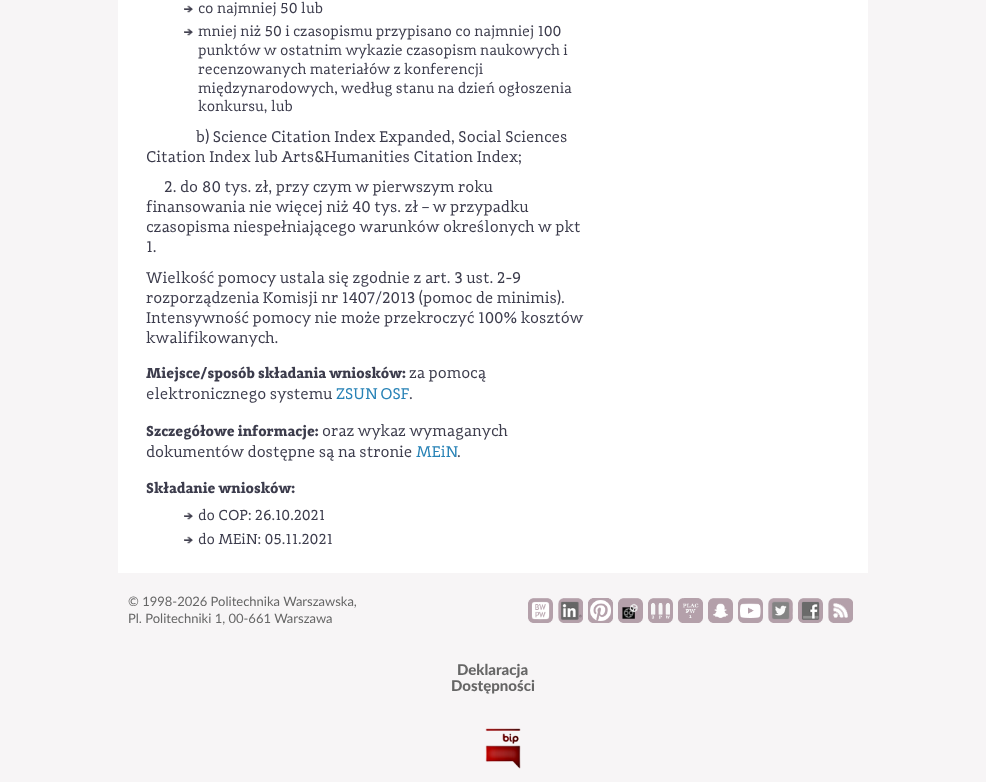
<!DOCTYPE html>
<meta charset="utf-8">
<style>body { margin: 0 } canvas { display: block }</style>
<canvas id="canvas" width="986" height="782"></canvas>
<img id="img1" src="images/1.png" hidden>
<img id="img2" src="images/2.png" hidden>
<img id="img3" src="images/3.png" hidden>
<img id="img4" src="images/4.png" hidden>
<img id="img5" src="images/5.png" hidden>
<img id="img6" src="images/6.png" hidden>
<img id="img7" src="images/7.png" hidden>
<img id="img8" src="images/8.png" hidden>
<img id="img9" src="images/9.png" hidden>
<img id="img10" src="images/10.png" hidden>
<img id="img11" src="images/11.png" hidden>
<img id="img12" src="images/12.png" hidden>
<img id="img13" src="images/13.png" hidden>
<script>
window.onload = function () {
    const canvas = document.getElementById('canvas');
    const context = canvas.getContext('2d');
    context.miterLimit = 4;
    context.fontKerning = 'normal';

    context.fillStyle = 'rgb(247, 245, 246)';
    context.fillRect(0, 0, 986, 782);
    context.fillStyle = 'rgb(255, 255, 255)';
    context.fillRect(118, 0, 750, 573);
    context.drawImage(document.getElementById('img1'), 184, 5, 9, 8);
    context.drawImage(document.getElementById('img1'), 184, 28, 9, 8);
    context.drawImage(document.getElementById('img1'), 184, 512, 9, 8);
    context.drawImage(document.getElementById('img1'), 184, 536, 9, 8);
    context.drawImage(document.getElementById('img2'), 528, 598, 25, 25);
    context.drawImage(document.getElementById('img3'), 558, 598, 25, 25);
    context.drawImage(document.getElementById('img4'), 588, 598, 25, 25);
    context.drawImage(document.getElementById('img5'), 618, 598, 25, 25);
    context.drawImage(document.getElementById('img6'), 648, 598, 25, 25);
    context.drawImage(document.getElementById('img7'), 678, 598, 25, 25);
    context.drawImage(document.getElementById('img8'), 708, 598, 25, 25);
    context.drawImage(document.getElementById('img9'), 738, 598, 25, 25);
    context.drawImage(document.getElementById('img10'), 768, 598, 25, 25);
    context.drawImage(document.getElementById('img11'), 798, 598, 25, 25);
    context.drawImage(document.getElementById('img12'), 828, 598, 25, 25);
    context.drawImage(document.getElementById('img13'), 485, 728, 36, 41);
    context.font = '15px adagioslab';
    context.fillStyle = 'rgb(60, 60, 76)';
    context.fillText('co najmniej 50 lub', 198, 13);
    context.fillText('mniej niż 50 i czasopismu przypisano co najmniej 100', 198, 36);
    context.fillText('punktów w ostatnim wykazie czasopism naukowych i', 198, 55);
    context.fillText('recenzowanych materiałów z konferencji', 198, 74);
    context.fillText('międzynarodowych, według stanu na dzień ogłoszenia', 198, 93);
    context.fillText('konkursu, lub', 198, 111);
    context.font = '16.05px adagioslab';
    context.fillText('b) Science Citation Index Expanded, Social Sciences', 196, 142);
    context.fillText('Citation Index lub Arts&Humanities Citation Index;', 146, 162);
    context.fillText('2. do 80 tys. zł, przy czym w pierwszym roku', 164, 192);
    context.fillText('finansowania nie więcej niż 40 tys. zł – w przypadku', 146, 212);
    context.fillText('czasopisma niespełniającego warunków określonych w pkt', 146, 232);
    context.fillText('1.', 146, 252);
    context.fillText('Wielkość pomocy ustala się zgodnie z art. 3 ust. 2-9', 146, 283);
    context.fillText('rozporządzenia Komisji nr 1407/2013 (pomoc de minimis).', 146, 303);
    context.fillText('Intensywność pomocy nie może przekroczyć 100% kosztów', 146, 323);
    context.fillText('kwalifikowanych.', 146, 343);
    context.font = 'bold 15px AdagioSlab';
    context.fillText('Miejsce/sposób składania wniosków:', 146, 378);
    context.font = '16.05px adagioslab';
    context.fillText('za pomocą', 409, 378);
    context.fillText('elektronicznego systemu', 146, 399);
    context.wordSpacing = '-1px';
    context.fillStyle = 'rgb(39, 130, 182)';
    context.fillText('ZSUN OSF', 336, 399);
    context.wordSpacing = '0px';
    context.fillStyle = 'rgb(60, 60, 76)';
    context.fillText('.', 409, 399);
    context.font = 'bold 15px AdagioSlab';
    context.fillText('Szczegółowe informacje:', 146, 436);
    context.font = '16.05px adagioslab';
    context.fillText('oraz wykaz wymaganych', 322, 436);
    context.fillText('dokumentów dostępne są na stronie', 146, 457);
    context.fillStyle = 'rgb(39, 130, 182)';
    context.fillText('MEiN', 416, 457);
    context.fillStyle = 'rgb(60, 60, 76)';
    context.fillText('.', 457, 457);
    context.font = 'bold 15px AdagioSlab';
    context.fillText('Składanie wniosków:', 146, 493);
    context.font = '15px adagioslab';
    context.fillText('do COP: 26.10.2021', 198, 520);
    context.fillText('do MEiN: 05.11.2021', 198, 544);
    context.font = '13px Lato';
    context.fillStyle = 'rgb(102, 102, 102)';
    context.fillText('© 1998-2026 Politechnika Warszawska,', 128, 606);
    context.fillText('Pl. Politechniki 1, 00-661 Warszawa', 128, 623);
    context.font = '900 15px Lato';
    context.fillText('Deklaracja', 457, 675);
    context.fillText('Dostępności', 451, 691);
};
</script>
